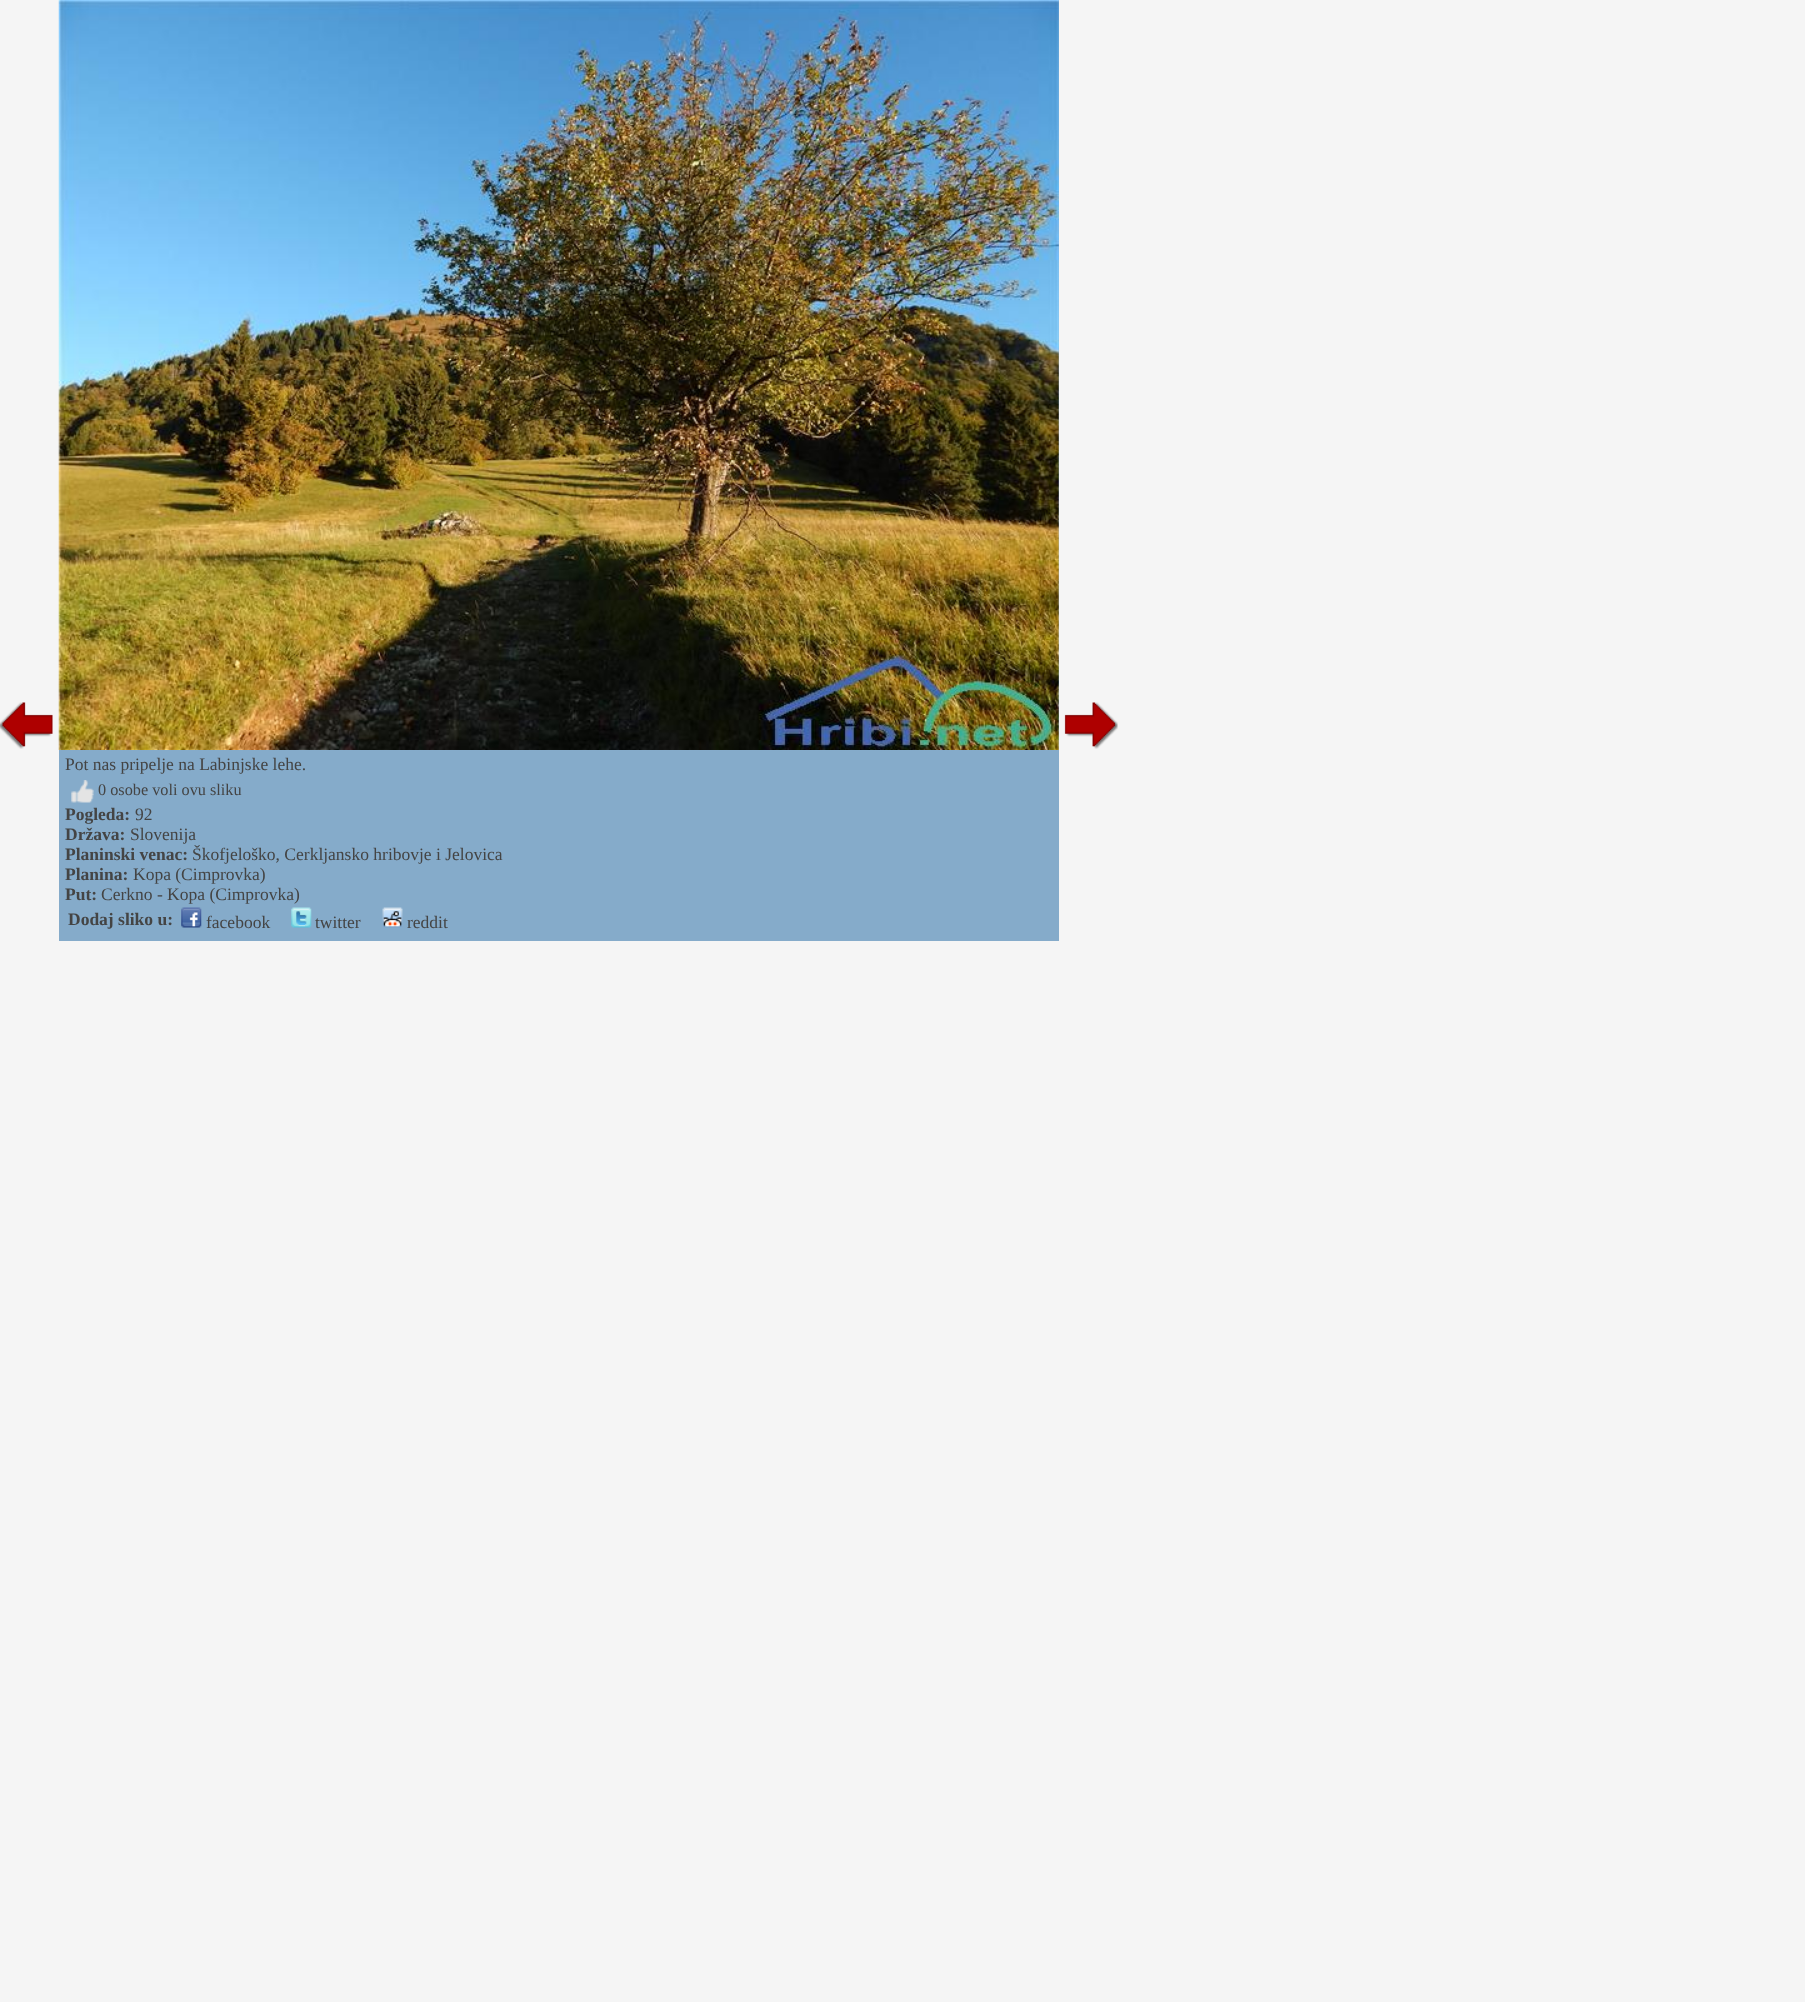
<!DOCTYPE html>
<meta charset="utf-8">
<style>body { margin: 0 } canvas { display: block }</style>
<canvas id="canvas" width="1805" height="2002"></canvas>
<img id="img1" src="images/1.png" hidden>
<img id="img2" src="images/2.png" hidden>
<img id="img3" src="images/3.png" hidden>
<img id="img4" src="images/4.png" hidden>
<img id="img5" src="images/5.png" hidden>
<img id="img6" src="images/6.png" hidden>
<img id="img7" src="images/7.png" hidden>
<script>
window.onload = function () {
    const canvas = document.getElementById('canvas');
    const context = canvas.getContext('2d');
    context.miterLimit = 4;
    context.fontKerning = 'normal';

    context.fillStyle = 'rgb(245, 245, 245)';
    context.fillRect(0, 0, 1805, 2002);
    context.drawImage(document.getElementById('img1'), 0, 702, 53, 47);
    context.drawImage(document.getElementById('img2'), 1064, 702, 54, 47);
    context.fillStyle = 'rgb(133, 171, 202)';
    context.fillRect(59, 0, 1000, 941);
    context.drawImage(document.getElementById('img3'), 58, 0, 1001, 750);
    context.drawImage(document.getElementById('img4'), 71, 780, 23, 23);
    context.drawImage(document.getElementById('img5'), 181, 907, 21, 21);
    context.drawImage(document.getElementById('img6'), 291, 907, 21, 21);
    context.drawImage(document.getElementById('img7'), 382, 907, 21, 21);
    context.font = '17.5px Liberation Serif';
    context.fillStyle = 'rgb(68, 68, 68)';
    context.fillText('Pot nas pripelje na Labinjske lehe.', 65, 770);
    context.font = '16.25px Liberation Serif';
    context.fillText('0 osobe voli ovu sliku', 98, 795);
    context.font = 'bold 17.5px Liberation Serif';
    context.fillText('Pogleda:', 65, 820);
    context.font = '17.5px Liberation Serif';
    context.fillText('92', 135, 820);
    context.font = 'bold 17.5px Liberation Serif';
    context.fillText('Država:', 65, 840);
    context.font = '17.5px Liberation Serif';
    context.fillText('Slovenija', 130, 840);
    context.font = 'bold 17.5px Liberation Serif';
    context.fillText('Planinski venac:', 65, 860);
    context.font = '17.5px Liberation Serif';
    context.fillText('Škofjeloško, Cerkljansko hribovje i Jelovica', 192, 860);
    context.font = 'bold 17.5px Liberation Serif';
    context.fillText('Planina:', 65, 880);
    context.font = '17.5px Liberation Serif';
    context.fillText('Kopa (Cimprovka)', 133, 880);
    context.font = 'bold 17.5px Liberation Serif';
    context.fillText('Put:', 65, 900);
    context.font = '17.5px Liberation Serif';
    context.fillText('Cerkno - Kopa (Cimprovka)', 101, 900);
    context.font = 'bold 17.5px Liberation Serif';
    context.fillText('Dodaj sliko u:', 68, 925);
    context.font = '17.5px Liberation Serif';
    context.fillText('facebook', 206, 928);
    context.fillText('twitter', 315, 928);
    context.fillText('reddit', 407, 928);
};
</script>
